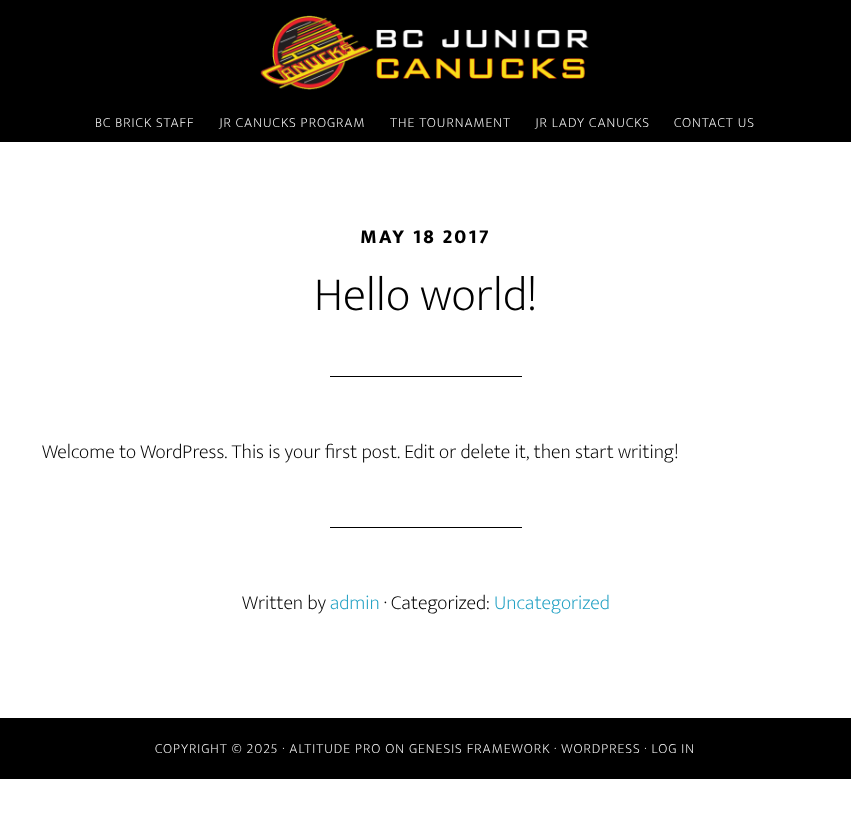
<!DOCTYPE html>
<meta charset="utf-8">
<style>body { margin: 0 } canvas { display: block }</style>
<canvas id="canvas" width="851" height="816"></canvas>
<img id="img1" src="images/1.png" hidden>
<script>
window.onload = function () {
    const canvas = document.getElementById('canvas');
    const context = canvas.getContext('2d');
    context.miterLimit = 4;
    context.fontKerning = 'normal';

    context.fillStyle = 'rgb(255, 255, 255)';
    context.fillRect(0, 0, 851, 816);
    context.fillStyle = 'rgb(0, 0, 0)';
    context.fillRect(0, 0, 851, 142);
    context.drawImage(document.getElementById('img1'), 260, 15, 329, 75);
    context.fillRect(330, 376, 192, 1);
    context.fillRect(330, 527, 192, 1);
    context.fillRect(0, 718, 851, 61);
    context.letterSpacing = '1px';
    context.font = '200 14px Ek Mukta';
    context.fillStyle = 'rgb(255, 255, 255)';
    context.fillText('BC BRICK STAFF', 95, 127);
    context.fillText('JR CANUCKS PROGRAM', 219, 127);
    context.fillText('THE TOURNAMENT', 390, 127);
    context.fillText('JR LADY CANUCKS', 535, 127);
    context.fillText('CONTACT US', 674, 127);
    context.letterSpacing = '2px';
    context.font = '800 20px Ek Mukta';
    context.fillStyle = 'rgb(0, 0, 0)';
    context.fillText('MAY 18 2017', 360, 243);
    context.letterSpacing = '0px';
    context.font = '200 48px Ek Mukta';
    context.fillText('Hello world!', 314, 310);
    context.font = '200 20px Ek Mukta';
    context.fillText('Welcome to WordPress. This is your first post. Edit or delete it, then start writing!', 42, 458);
    context.fillText('Written by', 242, 609);
    context.fillStyle = 'rgb(34, 161, 196)';
    context.fillText('admin', 330, 609);
    context.fillStyle = 'rgb(0, 0, 0)';
    context.fillText('· Categorized:', 384, 609);
    context.fillStyle = 'rgb(34, 161, 196)';
    context.fillText('Uncategorized', 494, 609);
    context.letterSpacing = '1px';
    context.font = '200 14px Ek Mukta';
    context.fillStyle = 'rgb(255, 255, 255)';
    context.fillText('COPYRIGHT © 2025 · ALTITUDE PRO ON GENESIS FRAMEWORK · WORDPRESS · LOG IN', 155, 753);
};
</script>
